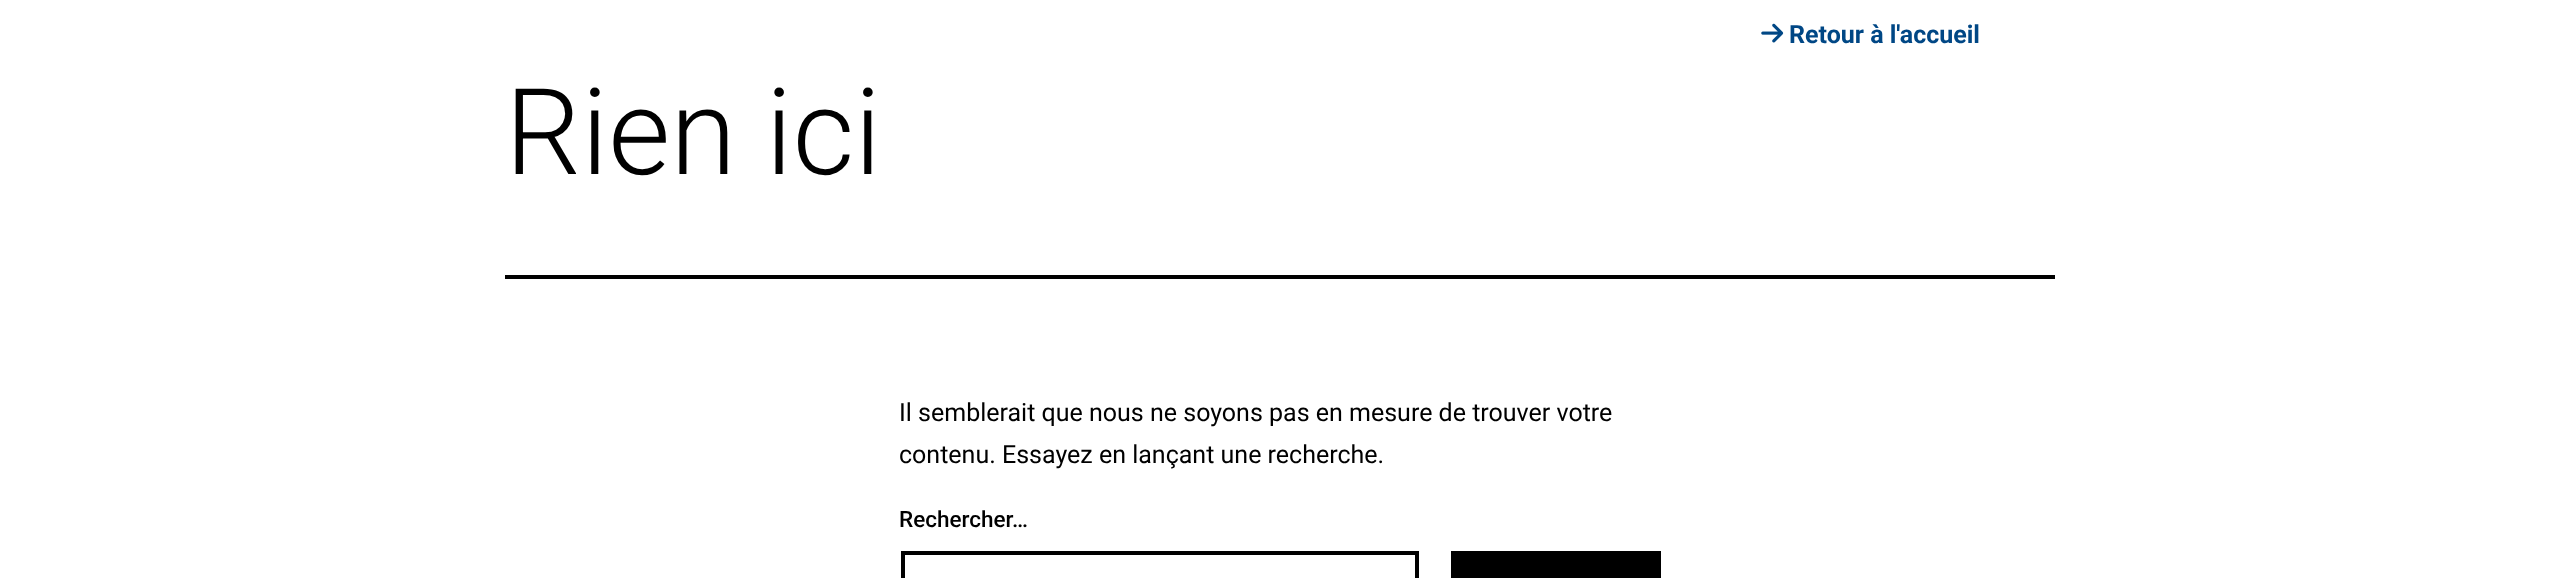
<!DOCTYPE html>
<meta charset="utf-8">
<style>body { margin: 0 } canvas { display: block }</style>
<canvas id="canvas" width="2559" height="578"></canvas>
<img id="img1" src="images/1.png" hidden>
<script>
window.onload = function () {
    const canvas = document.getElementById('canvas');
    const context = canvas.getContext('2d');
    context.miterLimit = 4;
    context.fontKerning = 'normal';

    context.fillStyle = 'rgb(255, 255, 255)';
    context.fillRect(0, 0, 2559, 578);
    context.drawImage(document.getElementById('img1'), 1761, 23, 23, 20);
    context.fillStyle = 'rgb(0, 0, 0)';
    context.fillRect(505, 275, 1550, 4);
    context.strokeStyle = 'rgb(0, 0, 0)';
    context.lineWidth = 4;
    context.strokeRect(903, 553, 514, 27);
    context.fillRect(1451, 551, 210, 27);
    context.font = 'bold 25px Roboto';
    context.fillStyle = 'rgb(0, 71, 133)';
    context.fillText('Retour à l\'accueil', 1789, 43);
    context.font = '300 120px Roboto';
    context.fillStyle = 'rgb(0, 0, 0)';
    context.fillText('Rien ici', 505, 174);
    context.font = '25px Roboto';
    context.fillText('Il semblerait que nous ne soyons pas en mesure de trouver votre', 899, 421);
    context.fillText('contenu. Essayez en lançant une recherche.', 899, 463);
    context.font = '500 22.5px Roboto';
    context.fillText('Rechercher…', 899, 527);
};
</script>
